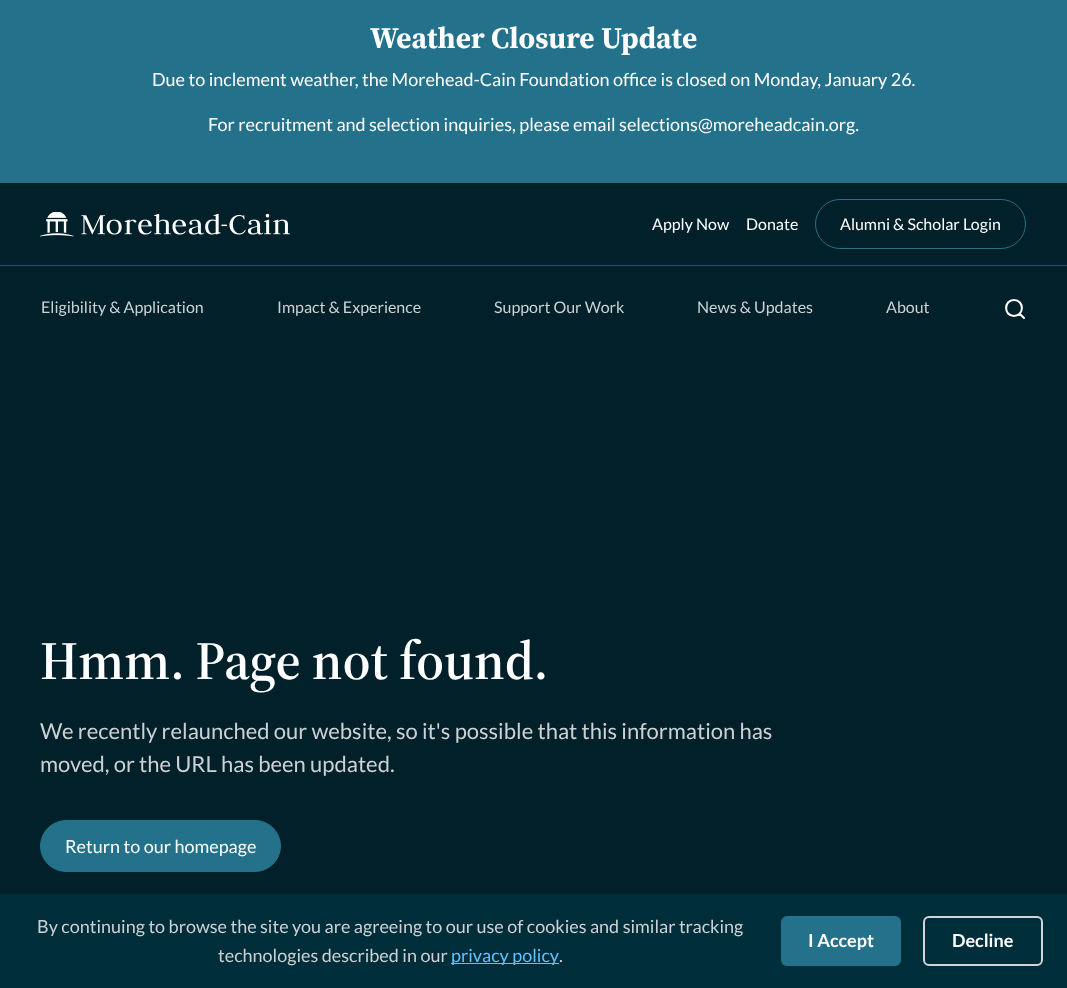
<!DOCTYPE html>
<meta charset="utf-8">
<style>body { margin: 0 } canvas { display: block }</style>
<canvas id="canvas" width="1067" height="988"></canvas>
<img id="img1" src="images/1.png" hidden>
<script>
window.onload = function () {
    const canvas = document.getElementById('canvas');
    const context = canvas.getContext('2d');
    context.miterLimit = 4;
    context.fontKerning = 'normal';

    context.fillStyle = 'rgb(1, 32, 42)';
    context.fillRect(0, 0, 1067, 988);
    context.fillStyle = 'rgb(36, 113, 139)';
    context.fillRect(0, 0, 1067, 183);
    context.drawImage(document.getElementById('img1'), 40, 212, 250, 25);
    context.beginPath();
    context.roundRect(815.5, 199.5, 210, 49, 24.5);
    context.strokeStyle = 'rgb(36, 113, 139)';
    context.stroke();
    context.fillStyle = 'rgb(31, 82, 110)';
    context.fillRect(0, 265, 1067, 1);
    context.beginPath();
    context.moveTo(1014, 316);
    context.bezierCurveTo(1024.5, 316, 1024.5, 300, 1014, 300);
    context.bezierCurveTo(1003.5, 300, 1003.5, 316, 1014, 316);
    context.closePath();
    context.moveTo(1024, 318);
    context.lineTo(1019.5, 313.5);
    context.strokeStyle = 'rgb(255, 255, 255)';
    context.lineWidth = 2;
    context.lineCap = 'round';
    context.lineJoin = 'round';
    context.stroke();
    context.fillStyle = 'rgb(36, 113, 139)';
    context.beginPath();
    context.roundRect(40.5, 820.5, 240, 51, 25.5);
    context.fill();
    context.strokeStyle = 'rgb(36, 113, 139)';
    context.lineWidth = 1;
    context.lineJoin = 'miter';
    context.stroke();
    context.fillStyle = 'rgb(0, 45, 58)';
    context.fillRect(0, 894, 1067, 94);
    context.fillStyle = 'rgb(99, 192, 255)';
    context.fillRect(451, 963, 108, 1);
    context.fillStyle = 'rgb(36, 113, 139)';
    context.beginPath();
    context.roundRect(781, 916, 120, 50, 6);
    context.fill();
    context.beginPath();
    context.roundRect(924, 917, 118, 48, 5);
    context.strokeStyle = 'rgb(209, 213, 219)';
    context.lineWidth = 2;
    context.stroke();
    context.font = 'bold 30px "Source Serif 4"';
    context.fillStyle = 'rgb(255, 255, 255)';
    context.fillText('Weather Closure Update', 370, 48);
    context.font = '18px Lato';
    context.fillText('Due to inclement weather, the Morehead-Cain Foundation office is closed on Monday, January 26.', 152, 86);
    context.fillText('For recruitment and selection inquiries, please email selections@moreheadcain.org.', 208, 131);
    context.font = '16px Lato';
    context.fillText('Apply Now', 652, 230);
    context.fillText('Donate', 746, 230);
    context.fillText('Alumni & Scholar Login', 840, 230);
    context.fillStyle = 'rgb(204, 210, 212)';
    context.fillText('Eligibility & Application', 41, 313);
    context.fillText('Impact & Experience', 277, 313);
    context.fillText('Support Our Work', 494, 313);
    context.fillText('News & Updates', 697, 313);
    context.fillText('About', 886, 313);
    context.font = '600 54px "Source Serif 4"';
    context.fillStyle = 'rgb(255, 255, 255)';
    context.fillText('Hmm. Page not found.', 40, 679);
    context.font = '22px Lato';
    context.fillStyle = 'rgb(204, 210, 212)';
    context.fillText('We recently relaunched our website, so it\'s possible that this information has', 40, 739);
    context.fillText('moved, or the URL has been updated.', 40, 772);
    context.font = '18px Lato';
    context.fillStyle = 'rgb(255, 255, 255)';
    context.fillText('Return to our homepage', 65, 853);
    context.fillStyle = 'rgb(204, 210, 212)';
    context.fillText('By continuing to browse the site you are agreeing to our use of cookies and similar tracking', 37, 933);
    context.fillText('technologies described in our', 218, 962);
    context.fillStyle = 'rgb(99, 192, 255)';
    context.fillText('privacy policy', 451, 962);
    context.fillStyle = 'rgb(204, 210, 212)';
    context.fillText('.', 559, 962);
    context.font = 'bold 18px Lato';
    context.fillStyle = 'rgb(255, 255, 255)';
    context.fillText('I Accept', 808, 947);
    context.fillText('Decline', 952, 947);
};
</script>
